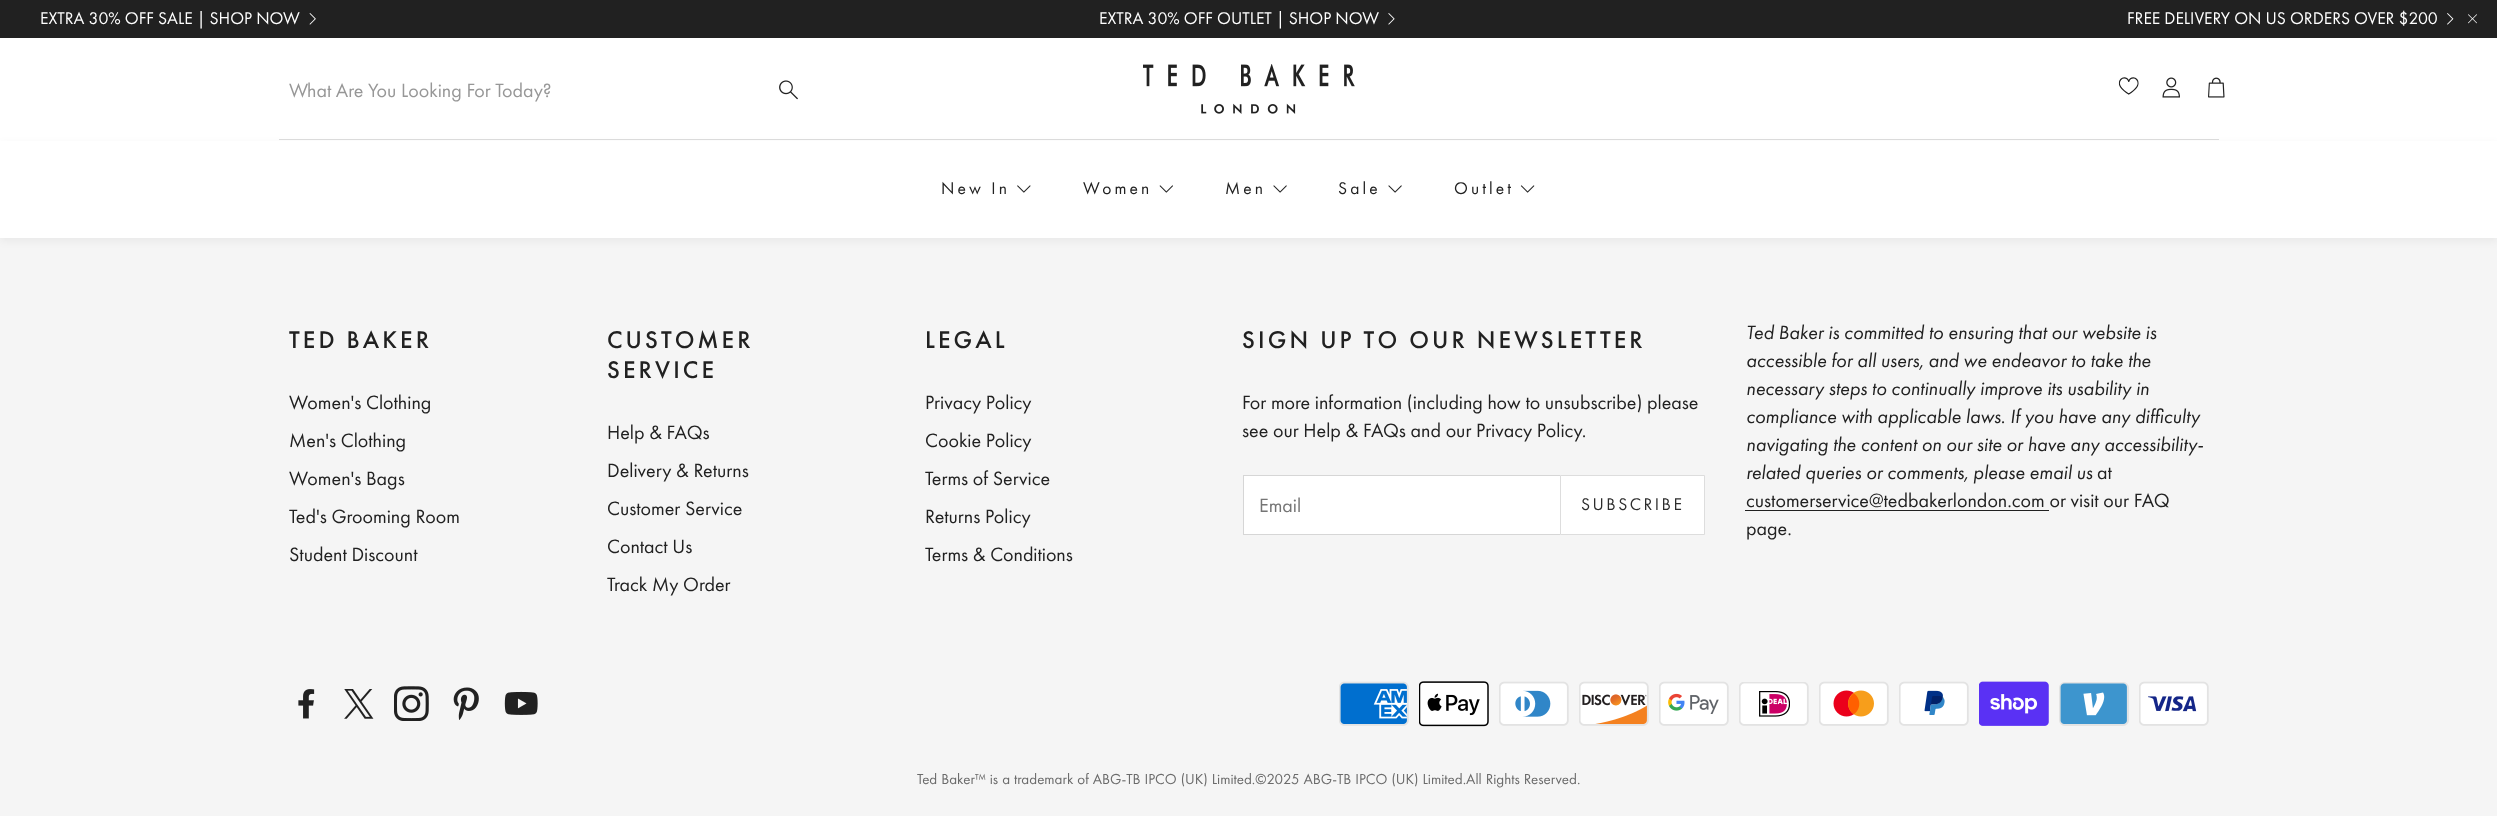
<!DOCTYPE html>
<meta charset="utf-8">
<style>body { margin: 0 } canvas { display: block }</style>
<canvas id="canvas" width="2497" height="816"></canvas>
<img id="img1" src="images/1.png" hidden>
<img id="img2" src="images/2.png" hidden>
<img id="img3" src="images/3.png" hidden>
<img id="img4" src="images/4.png" hidden>
<img id="img5" src="images/5.png" hidden>
<img id="img6" src="images/6.png" hidden>
<img id="img7" src="images/7.png" hidden>
<img id="img8" src="images/8.png" hidden>
<img id="img9" src="images/9.png" hidden>
<img id="img10" src="images/10.png" hidden>
<img id="img11" src="images/11.png" hidden>
<img id="img12" src="images/12.png" hidden>
<img id="img13" src="images/13.png" hidden>
<img id="img14" src="images/14.png" hidden>
<img id="img15" src="images/15.png" hidden>
<img id="img16" src="images/16.png" hidden>
<img id="img17" src="images/17.png" hidden>
<img id="img18" src="images/18.png" hidden>
<img id="img19" src="images/19.png" hidden>
<img id="img20" src="images/20.png" hidden>
<img id="img21" src="images/21.png" hidden>
<img id="img22" src="images/22.png" hidden>
<img id="img23" src="images/23.png" hidden>
<img id="img24" src="images/24.png" hidden>
<img id="img25" src="images/25.png" hidden>
<img id="img26" src="images/26.png" hidden>
<img id="img27" src="images/27.png" hidden>
<img id="img28" src="images/28.png" hidden>
<img id="img29" src="images/29.png" hidden>
<script>
window.onload = function () {
    const canvas = document.getElementById('canvas');
    const context = canvas.getContext('2d');
    context.miterLimit = 4;
    context.fontKerning = 'normal';

    context.fillStyle = 'rgb(255, 255, 255)';
    context.fillRect(0, 0, 2497, 816);
    context.fillStyle = 'rgb(33, 33, 33)';
    context.fillRect(0, 0, 2497, 38);
    context.drawImage(document.getElementById('img1'), 309, 13, 7, 12);
    context.drawImage(document.getElementById('img2'), 1388, 13, 7, 12);
    context.drawImage(document.getElementById('img3'), 2447, 13, 7, 12);
    context.drawImage(document.getElementById('img4'), 2468, 14, 9, 10);
    context.drawImage(document.getElementById('img5'), 779, 80, 19, 20);
    context.drawImage(document.getElementById('img6'), 1143, 64, 212, 50);
    context.drawImage(document.getElementById('img7'), 2118, 77, 21, 18);
    context.drawImage(document.getElementById('img8'), 2162, 77, 18, 21);
    context.drawImage(document.getElementById('img9'), 2208, 77, 17, 21);
    context.fillStyle = 'rgb(221, 221, 221)';
    context.fillRect(279, 139, 1940, 1);
    context.fillStyle = 'rgb(245, 245, 245)';
    context.fillRect(0, 238, 2497, 578);
    context.fillStyle = 'rgba(0, 0, 0, 0.05)';
    context.filter = 'blur(4px)';
    context.beginPath();
    context.rect(0, 144, 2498, 97);
    context.fill();
    context.filter = 'none';
    context.fillStyle = 'rgb(255, 255, 255)';
    context.fillRect(0, 141, 2497, 97);
    context.drawImage(document.getElementById('img10'), 1017, 185, 14, 8);
    context.drawImage(document.getElementById('img11'), 1159, 185, 14, 8);
    context.drawImage(document.getElementById('img12'), 1273, 185, 14, 8);
    context.drawImage(document.getElementById('img12'), 1388, 185, 14, 8);
    context.drawImage(document.getElementById('img13'), 1520, 185, 15, 8);
    context.fillRect(1244, 476, 316, 58);
    context.fillStyle = 'rgb(214, 214, 214)';
    context.fillRect(1243, 475, 317, 1);
    context.fillRect(1243, 534, 317, 1);
    context.fillRect(1243, 475, 1, 60);
    context.fillStyle = 'rgb(255, 255, 255)';
    context.beginPath();
    context.rect(1560.5, 475.5, 144, 59);
    context.fill();
    context.strokeStyle = 'rgb(221, 221, 221)';
    context.stroke();
    context.fillStyle = 'rgb(33, 33, 33)';
    context.fillRect(1745, 510, 304, 1);
    context.drawImage(document.getElementById('img14'), 298, 689, 17, 30);
    context.drawImage(document.getElementById('img15'), 344, 689, 30, 30);
    context.drawImage(document.getElementById('img16'), 394, 686, 35, 35);
    context.drawImage(document.getElementById('img17'), 453, 687, 26, 33);
    context.drawImage(document.getElementById('img18'), 504, 691, 34, 24);
    context.drawImage(document.getElementById('img19'), 1339, 681, 70, 45);
    context.drawImage(document.getElementById('img20'), 1419, 681, 70, 46);
    context.drawImage(document.getElementById('img21'), 1499, 681, 70, 45);
    context.drawImage(document.getElementById('img22'), 1579, 681, 70, 45);
    context.drawImage(document.getElementById('img23'), 1659, 681, 70, 45);
    context.drawImage(document.getElementById('img24'), 1739, 682, 70, 44);
    context.drawImage(document.getElementById('img25'), 1819, 681, 70, 45);
    context.drawImage(document.getElementById('img26'), 1899, 681, 70, 45);
    context.drawImage(document.getElementById('img27'), 1979, 681, 70, 45);
    context.drawImage(document.getElementById('img28'), 2059, 682, 70, 44);
    context.drawImage(document.getElementById('img29'), 2139, 681, 70, 45);
    context.font = '17.5px Futura PT';
    context.fillStyle = 'rgb(255, 255, 255)';
    context.fillText('EXTRA 30% OFF SALE | SHOP NOW', 40, 24);
    context.fillText('EXTRA 30% OFF OUTLET | SHOP NOW', 1099, 24);
    context.fillText('FREE DELIVERY ON US ORDERS OVER $200', 2127, 24);
    context.font = '20px Futura PT';
    context.fillStyle = 'rgb(151, 151, 151)';
    context.fillText('What Are You Looking For Today?', 289, 97);
    context.letterSpacing = '3.1px';
    context.font = '17.5px Futura PT';
    context.fillStyle = 'rgb(33, 33, 33)';
    context.fillText('New In', 941, 194);
    context.fillText('Women', 1083, 194);
    context.fillText('Men', 1225, 194);
    context.fillText('Sale', 1338, 194);
    context.fillText('Outlet', 1454, 194);
    context.font = '500 25px Futura PT';
    context.fillText('TED BAKER', 289, 348);
    context.letterSpacing = '0px';
    context.font = '20px Futura PT';
    context.fillText('Women\'s Clothing', 289, 409);
    context.fillText('Men\'s Clothing', 289, 447);
    context.fillText('Women\'s Bags', 289, 485);
    context.fillText('Ted\'s Grooming Room', 289, 523);
    context.fillText('Student Discount', 289, 561);
    context.letterSpacing = '3.1px';
    context.font = '500 25px Futura PT';
    context.fillText('CUSTOMER', 607, 348);
    context.fillText('SERVICE', 607, 378);
    context.letterSpacing = '0px';
    context.font = '20px Futura PT';
    context.fillText('Help & FAQs', 607, 439);
    context.fillText('Delivery & Returns', 607, 477);
    context.fillText('Customer Service', 607, 515);
    context.fillText('Contact Us', 607, 553);
    context.fillText('Track My Order', 607, 591);
    context.letterSpacing = '3.1px';
    context.font = '500 25px Futura PT';
    context.fillText('LEGAL', 925, 348);
    context.letterSpacing = '0px';
    context.font = '20px Futura PT';
    context.fillText('Privacy Policy', 925, 409);
    context.fillText('Cookie Policy', 925, 447);
    context.fillText('Terms of Service', 925, 485);
    context.fillText('Returns Policy', 925, 523);
    context.fillText('Terms & Conditions', 925, 561);
    context.letterSpacing = '3.1px';
    context.font = '500 25px Futura PT';
    context.fillText('SIGN UP TO OUR NEWSLETTER', 1242, 348);
    context.letterSpacing = '0px';
    context.font = '20px Futura PT';
    context.fillText('For more information (including how to unsubscribe) please', 1242, 409);
    context.fillText('see our Help & FAQs and our Privacy Policy.', 1242, 437);
    context.fillStyle = 'rgb(117, 117, 117)';
    context.fillText('Email', 1259, 512);
    context.letterSpacing = '2.5px';
    context.font = '17.5px Futura PT';
    context.fillStyle = 'rgb(45, 45, 45)';
    context.fillText('SUBSCRIBE', 1581, 510);
    context.letterSpacing = '0px';
    context.font = 'italic 20px Futura PT';
    context.fillStyle = 'rgb(33, 33, 33)';
    context.fillText('Ted Baker is committed to ensuring that our website is', 1746, 339);
    context.fillText('accessible for all users, and we endeavor to take the', 1746, 367);
    context.fillText('necessary steps to continually improve its usability in', 1746, 395);
    context.fillText('compliance with applicable laws. If you have any difficulty', 1746, 423);
    context.fillText('navigating the content on our site or have any accessibility-', 1746, 451);
    context.fillText('related queries or comments, please email us', 1746, 479);
    context.font = '20px Futura PT';
    context.fillText('at', 2097, 479);
    context.fillText('customerservice@tedbakerlondon.com or visit our FAQ', 1746, 507);
    context.fillText('page.', 1746, 535);
    context.wordSpacing = '0.5px';
    context.font = '15px Futura PT';
    context.fillStyle = 'rgb(107, 107, 107)';
    context.fillText('Ted Baker™ is a trademark of ABG-TB IPCO (UK) Limited.©2025 ABG-TB IPCO (UK) Limited.All Rights Reserved.', 917, 784);
};
</script>
